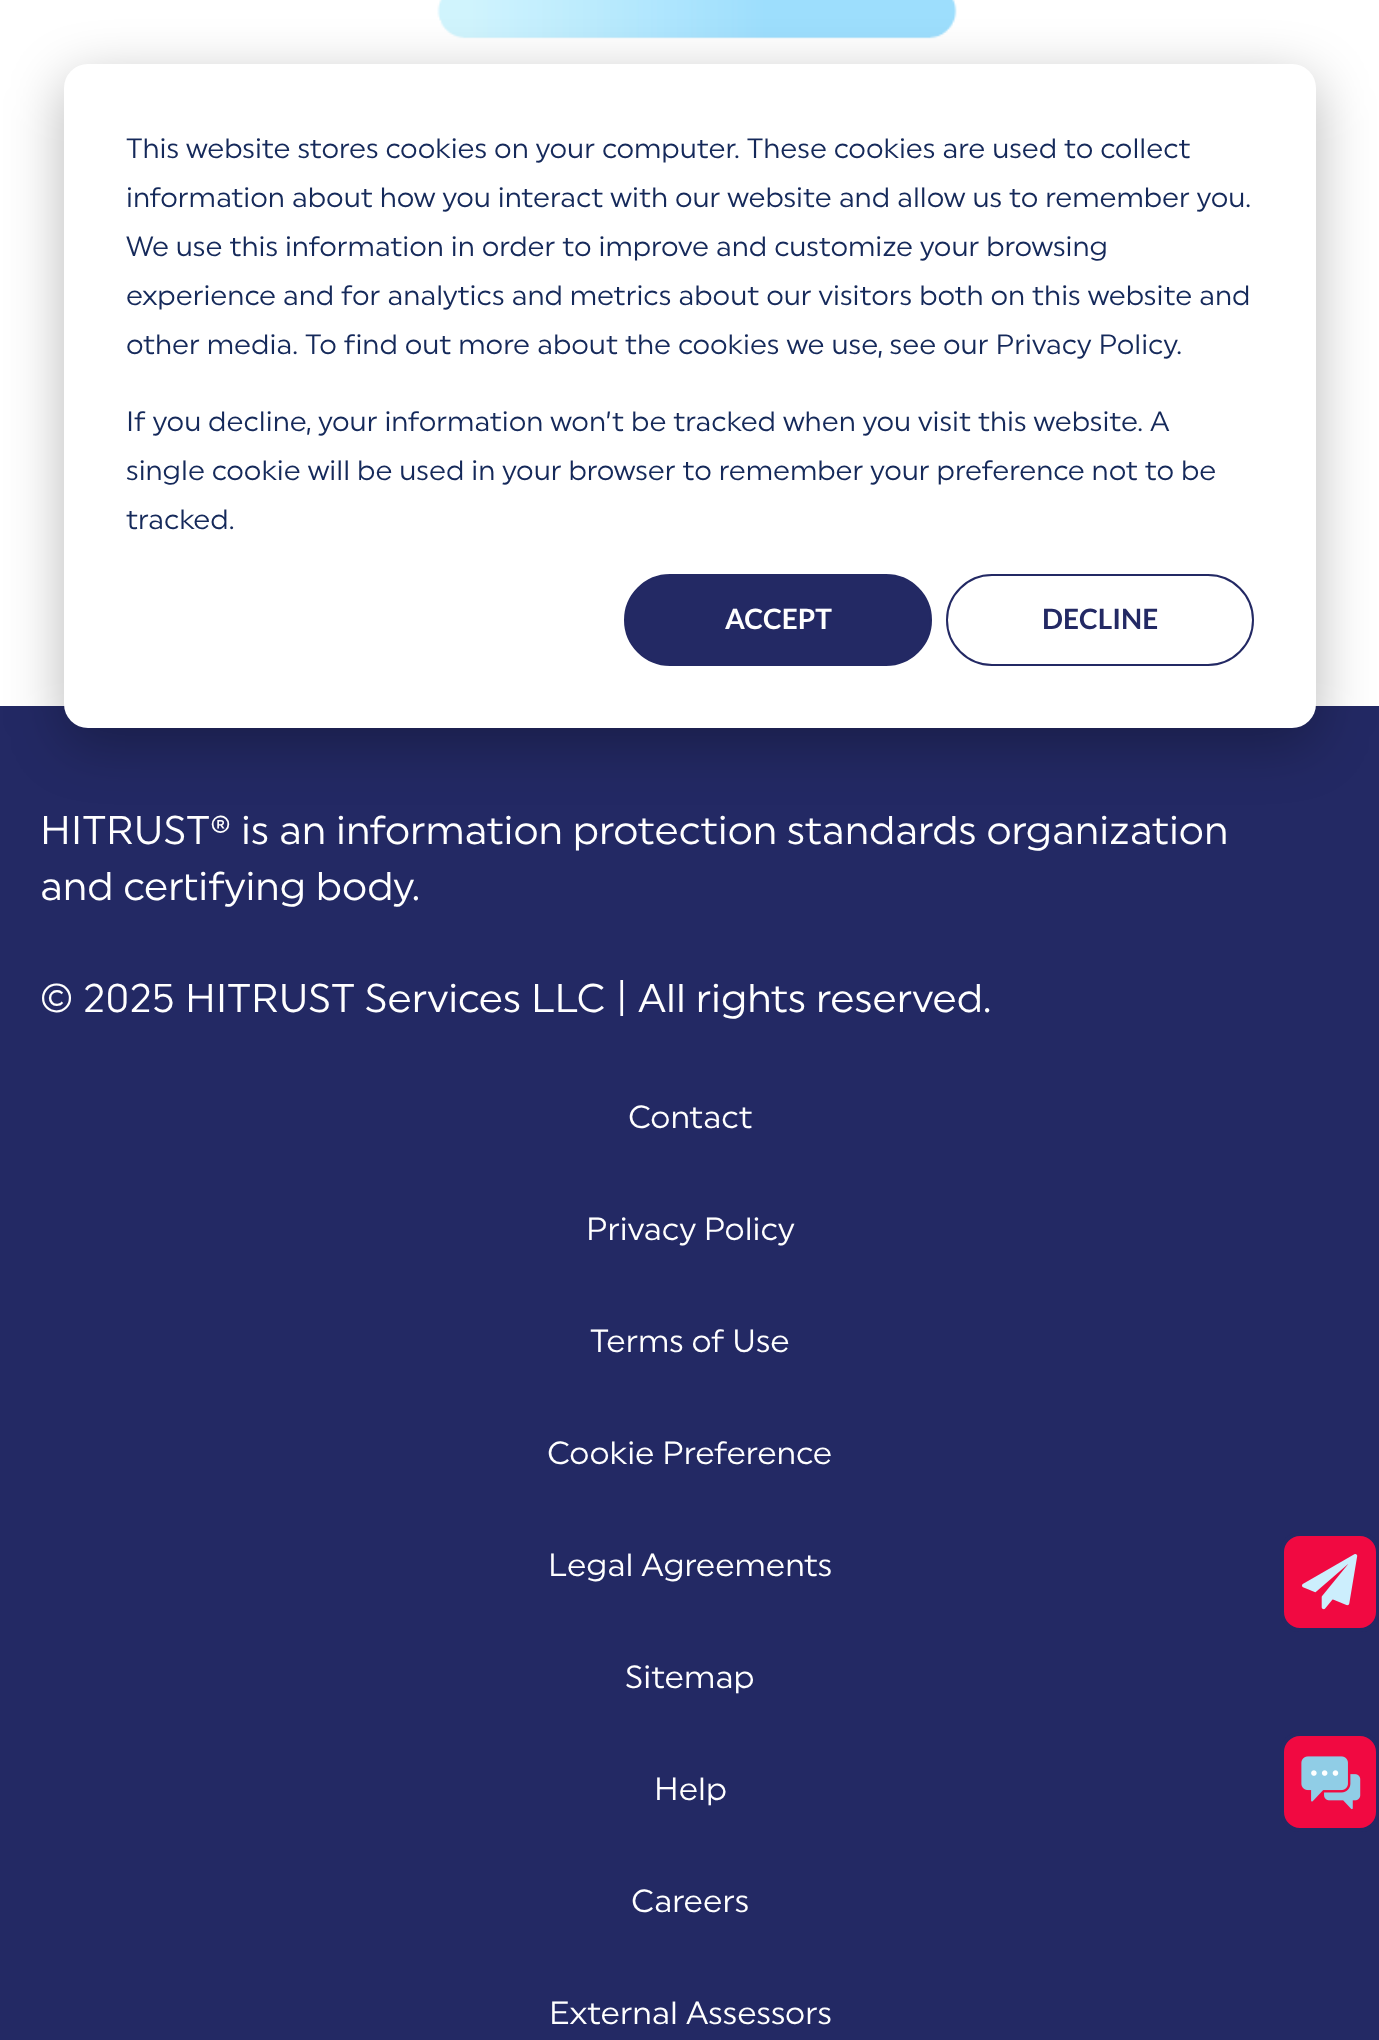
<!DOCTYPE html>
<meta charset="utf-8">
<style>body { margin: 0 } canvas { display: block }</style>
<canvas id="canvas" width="1379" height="2040"></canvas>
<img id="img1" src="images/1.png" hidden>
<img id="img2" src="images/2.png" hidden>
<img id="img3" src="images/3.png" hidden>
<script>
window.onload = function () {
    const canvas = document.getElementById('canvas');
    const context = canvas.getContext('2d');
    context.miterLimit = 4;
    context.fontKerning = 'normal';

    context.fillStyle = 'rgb(255, 255, 255)';
    context.fillRect(0, 0, 1379, 2040);
    context.drawImage(document.getElementById('img1'), 437, 0, 520, 39);
    context.fillStyle = 'rgb(35, 41, 100)';
    context.fillRect(0, 706, 1379, 1334);
    context.fillStyle = 'rgba(0, 0, 0, 0.28)';
    context.filter = 'blur(28px)';
    context.beginPath();
    context.roundRect(64, 80, 1252, 664, 24);
    context.fill();
    context.filter = 'none';
    context.fillStyle = 'rgb(255, 255, 255)';
    context.beginPath();
    context.roundRect(64, 64, 1252, 664, 24);
    context.fill();
    context.fillStyle = 'rgb(35, 41, 100)';
    context.beginPath();
    context.roundRect(625, 575, 306, 90, 45);
    context.fill();
    context.strokeStyle = 'rgb(35, 41, 100)';
    context.lineWidth = 2;
    context.stroke();
    context.beginPath();
    context.roundRect(947, 575, 306, 90, 45);
    context.stroke();
    context.fillStyle = 'rgb(241, 9, 65)';
    context.beginPath();
    context.roundRect(1282, 1534, 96, 96, 18);
    context.fill();
    context.lineWidth = 4;
    context.stroke();
    context.drawImage(document.getElementById('img2'), 1302, 1554, 56, 56);
    context.beginPath();
    context.roundRect(1282, 1734, 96, 96, 18);
    context.fill();
    context.stroke();
    context.drawImage(document.getElementById('img3'), 1301, 1756, 60, 54);
    context.font = '28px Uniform';
    context.fillStyle = 'rgb(21, 41, 90)';
    context.fillText('This website stores cookies on your computer. These cookies are used to collect', 126, 158);
    context.fillText('information about how you interact with our website and allow us to remember you.', 126, 207);
    context.fillText('We use this information in order to improve and customize your browsing', 126, 256);
    context.fillText('experience and for analytics and metrics about our visitors both on this website and', 126, 305);
    context.fillText('other media. To find out more about the cookies we use, see our Privacy Policy.', 126, 354);
    context.fillText('If you decline, your information won’t be tracked when you visit this website. A', 126, 431);
    context.fillText('single cookie will be used in your browser to remember your preference not to be', 126, 480);
    context.fillText('tracked.', 126, 529);
    context.font = 'bold 28px Lato';
    context.fillStyle = 'rgb(255, 255, 255)';
    context.fillText('ACCEPT', 725, 629);
    context.fillStyle = 'rgb(35, 41, 100)';
    context.fillText('DECLINE', 1042, 629);
    context.font = '40px Uniform';
    context.fillStyle = 'rgb(255, 255, 255)';
    context.fillText('HITRUST® is an information protection standards organization', 40, 844);
    context.fillText('and certifying body.', 40, 900);
    context.fillText('© 2025 HITRUST Services LLC | All rights reserved.', 40, 1012);
    context.font = '32px Uniform';
    context.fillText('Contact', 628, 1128);
    context.fillText('Privacy Policy', 586, 1240);
    context.fillText('Terms of Use', 590, 1352);
    context.fillText('Cookie Preference', 547, 1464);
    context.fillText('Legal Agreements', 548, 1576);
    context.fillText('Sitemap', 625, 1688);
    context.fillText('Help', 654, 1800);
    context.fillText('Careers', 631, 1912);
    context.fillText('External Assessors', 549, 2024);
};
</script>
